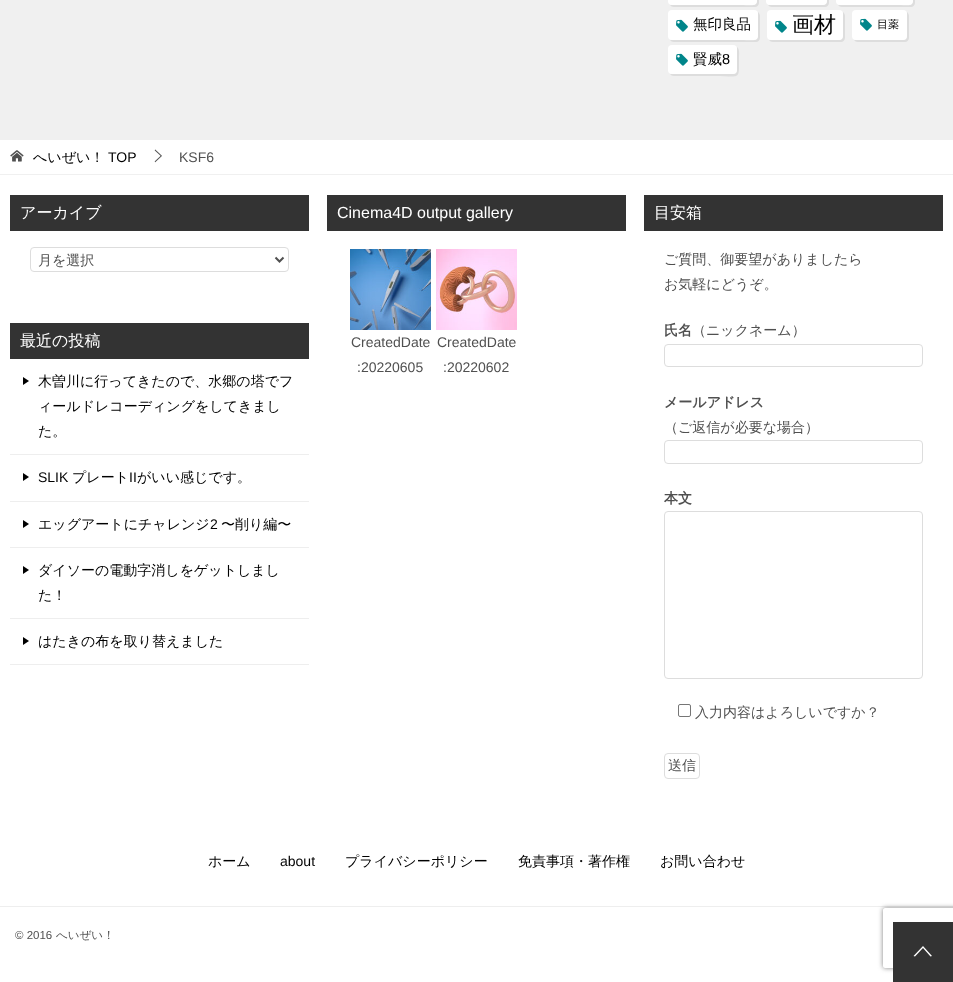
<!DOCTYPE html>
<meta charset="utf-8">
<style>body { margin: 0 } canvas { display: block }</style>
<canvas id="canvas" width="953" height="982"></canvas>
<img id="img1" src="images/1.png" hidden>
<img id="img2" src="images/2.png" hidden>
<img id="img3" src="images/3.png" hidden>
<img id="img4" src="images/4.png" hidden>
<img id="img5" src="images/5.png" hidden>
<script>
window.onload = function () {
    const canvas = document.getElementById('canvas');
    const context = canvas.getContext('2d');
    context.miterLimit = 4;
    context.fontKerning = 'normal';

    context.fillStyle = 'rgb(240, 240, 240)';
    context.fillRect(0, 0, 953, 982);
    context.fillStyle = 'rgb(221, 221, 221)';
    context.beginPath();
    context.moveTo(670, 5);
    context.bezierCurveTo(671, 6, 672, 7, 674, 7);
    context.lineTo(755, 7);
    context.bezierCurveTo(757, 7, 759, 5, 759, 3);
    context.lineTo(759, -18);
    context.bezierCurveTo(759, -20, 758, -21, 757, -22);
    context.lineTo(757, -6);
    context.bezierCurveTo(757, 8, 756, 5, 740, 5);
    context.closePath();
    context.fill();
    context.fillStyle = 'rgb(255, 255, 255)';
    context.beginPath();
    context.roundRect(668, -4, 89, 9, 4);
    context.fill();
    context.fillStyle = 'rgb(221, 221, 221)';
    context.beginPath();
    context.moveTo(768, 5);
    context.bezierCurveTo(769, 6, 770, 7, 772, 7);
    context.lineTo(825, 7);
    context.bezierCurveTo(827, 7, 829, 5, 829, 3);
    context.lineTo(829, -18);
    context.bezierCurveTo(829, -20, 828, -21, 827, -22);
    context.lineTo(827, -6);
    context.bezierCurveTo(827, 6, 827, 5, 814, 5);
    context.closePath();
    context.fill();
    context.fillStyle = 'rgb(255, 255, 255)';
    context.beginPath();
    context.roundRect(766, -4, 61, 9, 4);
    context.fill();
    context.fillStyle = 'rgb(221, 221, 221)';
    context.beginPath();
    context.moveTo(838, 5);
    context.bezierCurveTo(839, 6, 840, 7, 842, 7);
    context.lineTo(911, 7);
    context.bezierCurveTo(913, 7, 915, 5, 915, 3);
    context.lineTo(915, -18);
    context.bezierCurveTo(915, -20, 914, -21, 913, -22);
    context.lineTo(913, -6);
    context.bezierCurveTo(913, 8, 912, 5, 898, 5);
    context.closePath();
    context.fill();
    context.fillStyle = 'rgb(255, 255, 255)';
    context.beginPath();
    context.roundRect(836, -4, 77, 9, 4);
    context.fill();
    context.fillStyle = 'rgb(221, 221, 221)';
    context.beginPath();
    context.moveTo(670, 40);
    context.bezierCurveTo(671, 41, 672, 42, 674, 42);
    context.lineTo(756, 42);
    context.bezierCurveTo(758, 42, 760, 40, 760, 38);
    context.lineTo(760, 16);
    context.bezierCurveTo(760, 14, 759, 13, 758, 12);
    context.lineTo(758, 29);
    context.bezierCurveTo(758, 43, 757, 40, 740, 40);
    context.closePath();
    context.fill();
    context.fillStyle = 'rgb(255, 255, 255)';
    context.beginPath();
    context.roundRect(668, 10, 90, 30, 4);
    context.fill();
    context.drawImage(document.getElementById('img1'), 676, 19, 12, 13);
    context.fillStyle = 'rgb(221, 221, 221)';
    context.beginPath();
    context.moveTo(769, 40);
    context.bezierCurveTo(770, 41, 771, 42, 773, 42);
    context.lineTo(841, 42);
    context.bezierCurveTo(843, 42, 845, 40, 845, 38);
    context.lineTo(845, 16);
    context.bezierCurveTo(845, 14, 844, 13, 843, 12);
    context.lineTo(843, 29);
    context.bezierCurveTo(843, 42, 843, 40, 828, 40);
    context.closePath();
    context.fill();
    context.fillStyle = 'rgb(255, 255, 255)';
    context.beginPath();
    context.roundRect(767, 10, 76, 30, 4);
    context.fill();
    context.drawImage(document.getElementById('img1'), 775, 20, 12, 13);
    context.fillStyle = 'rgb(221, 221, 221)';
    context.beginPath();
    context.moveTo(854, 40);
    context.bezierCurveTo(855, 41, 856, 42, 858, 42);
    context.lineTo(905, 42);
    context.bezierCurveTo(907, 42, 909, 40, 909, 38);
    context.lineTo(909, 16);
    context.bezierCurveTo(909, 14, 908, 13, 907, 12);
    context.lineTo(907, 29);
    context.bezierCurveTo(907, 41, 908, 40, 895, 40);
    context.closePath();
    context.fill();
    context.fillStyle = 'rgb(255, 255, 255)';
    context.beginPath();
    context.roundRect(852, 10, 55, 30, 4);
    context.fill();
    context.drawImage(document.getElementById('img1'), 860, 18, 12, 13);
    context.fillStyle = 'rgb(221, 221, 221)';
    context.beginPath();
    context.moveTo(670, 74);
    context.bezierCurveTo(671, 75, 672, 76, 674, 76);
    context.lineTo(715, 76);
    context.bezierCurveTo(741, 76, 739, 81, 739, 58);
    context.bezierCurveTo(739, 55, 740, 49, 737, 47);
    context.lineTo(737, 63);
    context.bezierCurveTo(737, 76, 737, 74, 723, 74);
    context.closePath();
    context.fill();
    context.fillStyle = 'rgb(255, 255, 255)';
    context.beginPath();
    context.roundRect(668, 45, 69, 29, 4);
    context.fill();
    context.drawImage(document.getElementById('img1'), 676, 53, 12, 13);
    context.fillRect(0, 140, 953, 34);
    context.drawImage(document.getElementById('img2'), 10, 150, 14, 12);
    context.drawImage(document.getElementById('img3'), 154, 149, 8, 14);
    context.fillRect(0, 175, 953, 807);
    context.fillStyle = 'rgb(51, 51, 51)';
    context.fillRect(10, 195, 299, 36);
    context.beginPath();
    context.roundRect(30.5, 247.5, 258, 24, 3.5);
    context.strokeStyle = 'rgb(221, 221, 221)';
    context.stroke();
    context.beginPath();
    context.moveTo(275.5, 257.5);
    context.lineTo(279.5, 261.5);
    context.lineTo(283.5, 257.5);
    context.strokeStyle = 'rgb(80, 80, 80)';
    context.lineWidth = 2;
    context.stroke();
    context.fillRect(10, 323, 299, 36);
    context.fillStyle = 'rgb(238, 238, 238)';
    context.fillRect(10, 454, 299, 1);
    context.fillStyle = 'rgb(0, 0, 0)';
    context.beginPath();
    context.moveTo(23, 385);
    context.lineTo(23, 377);
    context.lineTo(29, 381);
    context.closePath();
    context.fill();
    context.fillStyle = 'rgb(238, 238, 238)';
    context.fillRect(10, 501, 299, 1);
    context.fillStyle = 'rgb(0, 0, 0)';
    context.beginPath();
    context.moveTo(23, 481);
    context.lineTo(23, 473);
    context.lineTo(29, 477);
    context.closePath();
    context.fill();
    context.fillStyle = 'rgb(238, 238, 238)';
    context.fillRect(10, 547, 299, 1);
    context.fillStyle = 'rgb(0, 0, 0)';
    context.beginPath();
    context.moveTo(23, 528);
    context.lineTo(23, 520);
    context.lineTo(29, 524);
    context.closePath();
    context.fill();
    context.fillStyle = 'rgb(238, 238, 238)';
    context.fillRect(10, 618, 299, 1);
    context.fillStyle = 'rgb(0, 0, 0)';
    context.beginPath();
    context.moveTo(23, 574);
    context.lineTo(23, 566);
    context.lineTo(29, 570);
    context.closePath();
    context.fill();
    context.fillStyle = 'rgb(238, 238, 238)';
    context.fillRect(10, 664, 299, 1);
    context.fillStyle = 'rgb(0, 0, 0)';
    context.beginPath();
    context.moveTo(23, 645);
    context.lineTo(23, 637);
    context.lineTo(29, 641);
    context.closePath();
    context.fill();
    context.fillStyle = 'rgb(51, 51, 51)';
    context.fillRect(327, 195, 299, 36);
    context.drawImage(document.getElementById('img4'), 350, 249, 81, 81);
    context.drawImage(document.getElementById('img5'), 436, 249, 81, 81);
    context.fillRect(644, 195, 299, 36);
    context.beginPath();
    context.roundRect(664.5, 344.5, 258, 22, 3.5);
    context.strokeStyle = 'rgb(221, 221, 221)';
    context.lineWidth = 1;
    context.stroke();
    context.beginPath();
    context.roundRect(664.5, 440.5, 258, 23, 3.5);
    context.stroke();
    context.beginPath();
    context.roundRect(664.5, 511.5, 258, 167, 3.5);
    context.stroke();
    context.beginPath();
    context.roundRect(678.5, 704.5, 12, 12, 1.5);
    context.strokeStyle = 'rgb(118, 118, 118)';
    context.stroke();
    context.beginPath();
    context.roundRect(664.5, 753.5, 35, 25, 3.5);
    context.strokeStyle = 'rgb(221, 221, 221)';
    context.stroke();
    context.fillStyle = 'rgb(238, 238, 238)';
    context.fillRect(0, 906, 953, 1);
    context.save();
    context.beginPath();
    context.moveTo(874, 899);
    context.lineTo(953, 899);
    context.lineTo(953, 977);
    context.lineTo(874, 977);
    context.closePath();
    context.moveTo(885, 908);
    context.lineTo(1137, 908);
    context.bezierCurveTo(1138, 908, 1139, 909, 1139, 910);
    context.lineTo(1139, 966);
    context.bezierCurveTo(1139, 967, 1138, 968, 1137, 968);
    context.lineTo(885, 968);
    context.bezierCurveTo(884, 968, 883, 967, 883, 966);
    context.lineTo(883, 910);
    context.bezierCurveTo(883, 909, 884, 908, 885, 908);
    context.closePath();
    context.clip('evenodd');
    context.fillStyle = 'rgb(128, 128, 128)';
    context.filter = 'blur(2.5px)';
    context.beginPath();
    context.roundRect(883, 908, 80, 60, 2);
    context.fill();
    context.filter = 'none';
    context.restore();
    context.fillStyle = 'rgb(51, 51, 51)';
    context.fillRect(893, 922, 60, 60);
    context.fillStyle = 'rgb(255, 255, 255)';
    context.beginPath();
    context.moveTo(923, 946);
    context.lineTo(932, 956);
    context.lineTo(930.5, 956.5);
    context.lineTo(923, 948);
    context.lineTo(915, 956.5);
    context.lineTo(913.5, 956);
    context.closePath();
    context.fill();
    context.font = '500 14.5px WenQuanYi Zen Hei';
    context.fillStyle = 'rgb(0, 0, 0)';
    context.fillText('無印良品', 693, 29);
    context.font = '500 22px WenQuanYi Zen Hei';
    context.fillText('画材', 792, 32);
    context.font = '500 11px WenQuanYi Zen Hei';
    context.fillText('目薬', 877, 28);
    context.font = '500 14.5px WenQuanYi Zen Hei';
    context.fillText('賢威', 693, 64);
    context.font = '14.5px Liberation Sans';
    context.fillText('8', 722, 64);
    context.font = '500 14px WenQuanYi Zen Hei';
    context.fillText('へいぜい！', 33, 162);
    context.font = '14px Liberation Sans';
    context.fillText('TOP', 108, 162);
    context.fillStyle = 'rgb(80, 80, 80)';
    context.fillText('KSF6', 179, 162);
    context.font = '500 16px WenQuanYi Zen Hei';
    context.fillStyle = 'rgb(255, 255, 255)';
    context.fillText('アーカイブ', 20, 218);
    context.font = '500 14px WenQuanYi Zen Hei';
    context.fillStyle = 'rgb(80, 80, 80)';
    context.fillText('月を選択', 38, 265);
    context.font = '500 16px WenQuanYi Zen Hei';
    context.fillStyle = 'rgb(255, 255, 255)';
    context.fillText('最近の投稿', 20, 346);
    context.font = '500 14px WenQuanYi Zen Hei';
    context.fillStyle = 'rgb(0, 0, 0)';
    context.fillText('木曽川に行ってきたので、水郷の塔でフ', 38, 386);
    context.fillText('ィールドレコーディングをしてきまし', 38, 411);
    context.fillText('た。', 38, 436);
    context.font = '14px Liberation Sans';
    context.fillText('SLIK', 38, 482);
    context.font = '500 14px WenQuanYi Zen Hei';
    context.fillText('プレート', 72, 482);
    context.font = '14px Liberation Sans';
    context.fillText('II', 129, 482);
    context.font = '500 14px WenQuanYi Zen Hei';
    context.fillText('がいい感じです。', 137, 482);
    context.fillText('エッグアートにチャレンジ', 38, 529);
    context.font = '14px Liberation Sans';
    context.fillText('2', 210, 529);
    context.font = '500 14px WenQuanYi Zen Hei';
    context.fillText('〜削り編〜', 221, 529);
    context.fillText('ダイソーの電動字消しをゲットしまし', 38, 575);
    context.fillText('た！', 38, 600);
    context.fillText('はたきの布を取り替えました', 38, 646);
    context.font = '16px Liberation Sans';
    context.fillStyle = 'rgb(255, 255, 255)';
    context.fillText('Cinema4D output gallery', 337, 218);
    context.font = '14px Liberation Sans';
    context.fillStyle = 'rgb(80, 80, 80)';
    context.fillText('CreatedDate', 351, 347);
    context.fillText(':20220605', 357, 372);
    context.fillText('CreatedDate', 437, 347);
    context.fillText(':20220602', 443, 372);
    context.font = '500 16px WenQuanYi Zen Hei';
    context.fillStyle = 'rgb(255, 255, 255)';
    context.fillText('目安箱', 654, 218);
    context.font = '500 14px WenQuanYi Zen Hei';
    context.fillStyle = 'rgb(80, 80, 80)';
    context.fillText('ご質問、御要望がありましたら', 664, 264);
    context.fillText('お気軽にどうぞ。', 664, 289);
    context.font = 'bold 14px WenQuanYi Zen Hei';
    context.fillText('氏名', 664, 335);
    context.font = '500 14px WenQuanYi Zen Hei';
    context.fillText('（ニックネーム）', 692, 335);
    context.font = 'bold 14px WenQuanYi Zen Hei';
    context.fillText('メールアドレス', 664, 407);
    context.font = '500 14px WenQuanYi Zen Hei';
    context.fillText('（ご返信が必要な場合）', 664, 432);
    context.font = 'bold 14px WenQuanYi Zen Hei';
    context.fillText('本文', 664, 503);
    context.font = '500 14px WenQuanYi Zen Hei';
    context.fillText('入力内容はよろしいですか？', 695, 717);
    context.fillText('送信', 668, 770);
    context.fillStyle = 'rgb(0, 0, 0)';
    context.fillText('ホーム', 208, 866);
    context.font = '14px Liberation Sans';
    context.fillText('about', 280, 866);
    context.font = '500 14px WenQuanYi Zen Hei';
    context.fillText('プライバシーポリシー', 345, 866);
    context.fillText('免責事項・著作権', 518, 866);
    context.fillText('お問い合わせ', 660, 866);
    context.font = '11.5px Liberation Sans';
    context.fillStyle = 'rgb(80, 80, 80)';
    context.fillText('© 2016', 15, 939);
    context.font = '500 11.5px WenQuanYi Zen Hei';
    context.fillText('へいぜい！', 56, 939);
};
</script>
